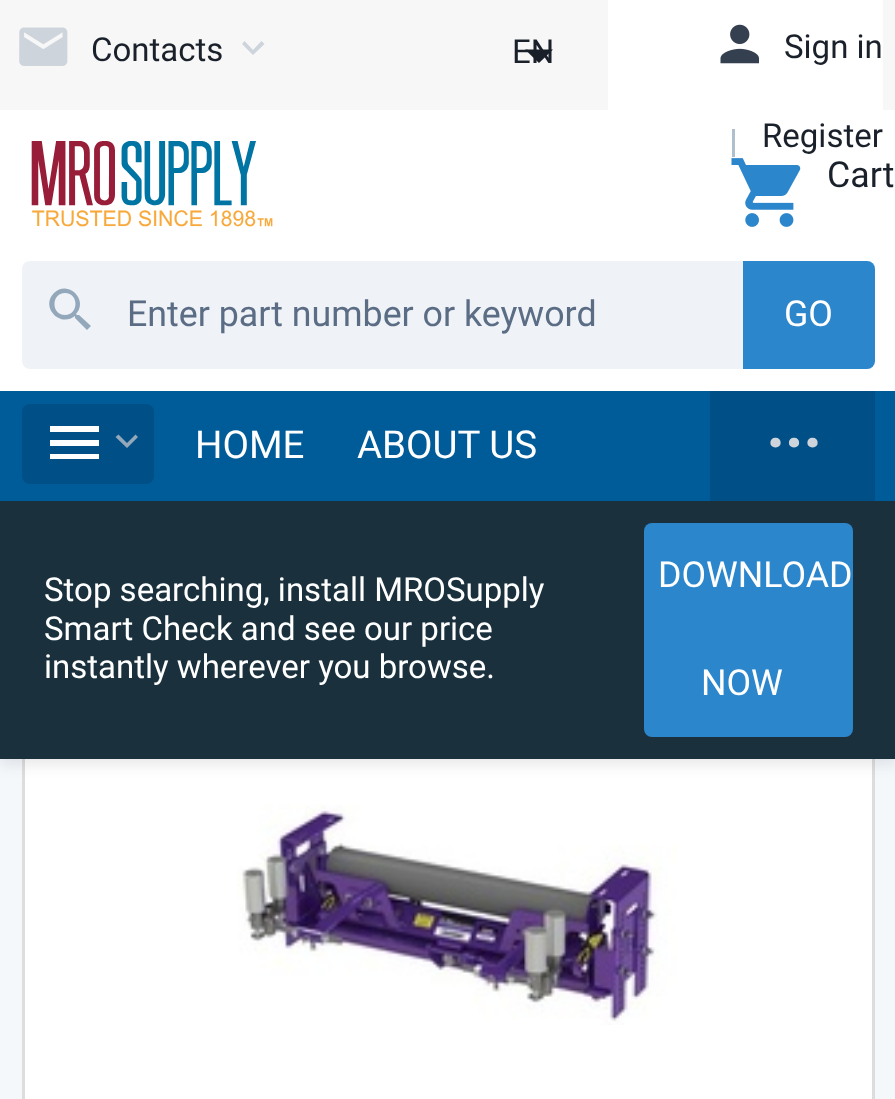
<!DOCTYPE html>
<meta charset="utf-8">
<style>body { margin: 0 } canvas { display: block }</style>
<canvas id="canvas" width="895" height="1099"></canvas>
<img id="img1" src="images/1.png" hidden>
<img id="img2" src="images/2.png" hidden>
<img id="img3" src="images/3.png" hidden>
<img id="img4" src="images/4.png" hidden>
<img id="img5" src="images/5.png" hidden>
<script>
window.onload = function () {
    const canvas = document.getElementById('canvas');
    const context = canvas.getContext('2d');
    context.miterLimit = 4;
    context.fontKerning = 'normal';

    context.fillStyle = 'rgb(245, 248, 251)';
    context.fillRect(0, 0, 895, 1099);
    context.fillStyle = 'rgb(255, 255, 255)';
    context.fillRect(25, 759, 847, 340);
    context.strokeStyle = 'rgb(221, 221, 221)';
    context.lineWidth = 3;
    context.strokeRect(23.5, 672.5, 850, 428);
    context.fillStyle = 'rgba(28, 34, 43, 0.1)';
    context.filter = 'blur(7px)';
    context.beginPath();
    context.rect(0, 6, 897, 759);
    context.fill();
    context.filter = 'none';
    context.fillStyle = 'rgb(255, 255, 255)';
    context.fillRect(0, 110, 895, 281);
    context.fillStyle = 'rgb(247, 247, 247)';
    context.fillRect(0, 0, 895, 110);
    context.drawImage(document.getElementById('img1'), 19, 27, 49, 39);
    context.fillStyle = 'rgb(205, 212, 219)';
    context.beginPath();
    context.moveTo(244.5, 41);
    context.lineTo(253, 50);
    context.lineTo(261.5, 41);
    context.lineTo(264.5, 44);
    context.lineTo(253, 55);
    context.lineTo(242, 44);
    context.closePath();
    context.fill();
    context.fillStyle = 'rgb(255, 255, 255)';
    context.fillRect(608, 0, 275, 110);
    context.drawImage(document.getElementById('img2'), 720, 24, 39, 40);
    context.fillStyle = 'rgb(176, 191, 205)';
    context.fillRect(732, 129, 3, 28);
    context.drawImage(document.getElementById('img3'), 731, 158, 70, 69);
    context.drawImage(document.getElementById('img4'), 31, 141, 242, 86);
    context.fillStyle = 'rgb(239, 242, 246)';
    context.beginPath();
    context.roundRect(23.5, 262.5, 850, 105, 6.5);
    context.fill();
    context.strokeStyle = 'rgb(239, 242, 246)';
    context.stroke();
    context.fillStyle = 'rgb(148, 168, 187)';
    context.beginPath();
    context.moveTo(79, 315);
    context.lineTo(77, 315);
    context.lineTo(76, 314);
    context.bezierCurveTo(89, 300, 68, 279, 54, 293);
    context.bezierCurveTo(40, 307, 60, 328, 75, 316);
    context.lineTo(75, 318);
    context.lineTo(87, 330);
    context.lineTo(91, 326);
    context.closePath();
    context.moveTo(65, 315);
    context.bezierCurveTo(51, 315, 51, 293, 65, 293);
    context.bezierCurveTo(79, 293, 79, 315, 65, 315);
    context.closePath();
    context.fill();
    context.fillStyle = 'rgb(43, 134, 204)';
    context.beginPath();
    context.roundRect(743, 261, 132, 108, [0, 8, 8, 0]);
    context.fill();
    context.fillStyle = 'rgb(0, 92, 152)';
    context.fillRect(0, 391, 895, 110);
    context.fillStyle = 'rgb(0, 79, 135)';
    context.beginPath();
    context.roundRect(22, 404, 132, 80, 8);
    context.fill();
    context.fillStyle = 'rgb(255, 255, 255)';
    context.beginPath();
    context.moveTo(50, 459);
    context.lineTo(99, 459);
    context.lineTo(99, 454);
    context.lineTo(50, 454);
    context.closePath();
    context.moveTo(50, 446);
    context.lineTo(99, 446);
    context.lineTo(99, 440);
    context.lineTo(50, 440);
    context.closePath();
    context.moveTo(50, 426);
    context.lineTo(50, 432);
    context.lineTo(99, 432);
    context.lineTo(99, 426);
    context.closePath();
    context.fill();
    context.fillStyle = 'rgb(148, 168, 187)';
    context.beginPath();
    context.moveTo(118.5, 434.5);
    context.lineTo(127, 443);
    context.lineTo(135.5, 434.5);
    context.lineTo(138, 437);
    context.lineTo(127, 448);
    context.lineTo(115.5, 437);
    context.closePath();
    context.fill();
    context.fillStyle = 'rgb(0, 79, 135)';
    context.fillRect(710, 391, 165, 110);
    context.fillStyle = 'rgb(26, 49, 61)';
    context.fillRect(0, 501, 895, 258);
    context.fillStyle = 'rgb(43, 134, 204)';
    context.beginPath();
    context.roundRect(644, 523, 209, 214, 8);
    context.fill();
    context.drawImage(document.getElementById('img5'), 237, 804, 440, 221);
    context.font = '33px Roboto';
    context.fillStyle = 'rgb(27, 33, 43)';
    context.fillText('Contacts', 91, 61);
    context.fillText('EN', 512, 63);
    context.fillStyle = 'rgb(25, 31, 40)';
    context.beginPath();
    context.moveTo(525, 49.5);
    context.lineTo(539, 63);
    context.lineTo(553, 49.5);
    context.closePath();
    context.fill();
    context.fillStyle = 'rgb(27, 33, 43)';
    context.fillText('Sign in', 784, 58);
    context.fillText('Register', 762, 147);
    context.font = '35.75px Roboto';
    context.fillText('Cart', 827, 187);
    context.fillStyle = 'rgb(91, 108, 133)';
    context.fillText('Enter part number or keyword', 127, 326);
    context.fillStyle = 'rgb(255, 255, 255)';
    context.fillText('GO', 784, 326);
    context.font = '38.5px Roboto';
    context.fillText('HOME', 195, 458);
    context.fillText('ABOUT US', 357, 458);
    context.letterSpacing = '-5.5px';
    context.font = '91px Roboto';
    context.fillStyle = 'rgb(205, 212, 219)';
    context.fillText('...', 764, 447);
    context.letterSpacing = '0px';
    context.font = '33px Roboto';
    context.fillStyle = 'rgb(255, 255, 255)';
    context.fillText('Stop searching, install MROSupply', 44, 601);
    context.fillText('Smart Check and see our price', 44, 640);
    context.fillText('instantly wherever you browse.', 44, 678);
    context.font = '35.75px Roboto';
    context.fillText('DOWNLOAD', 658, 587);
    context.fillText('NOW', 701, 695);
};
</script>
